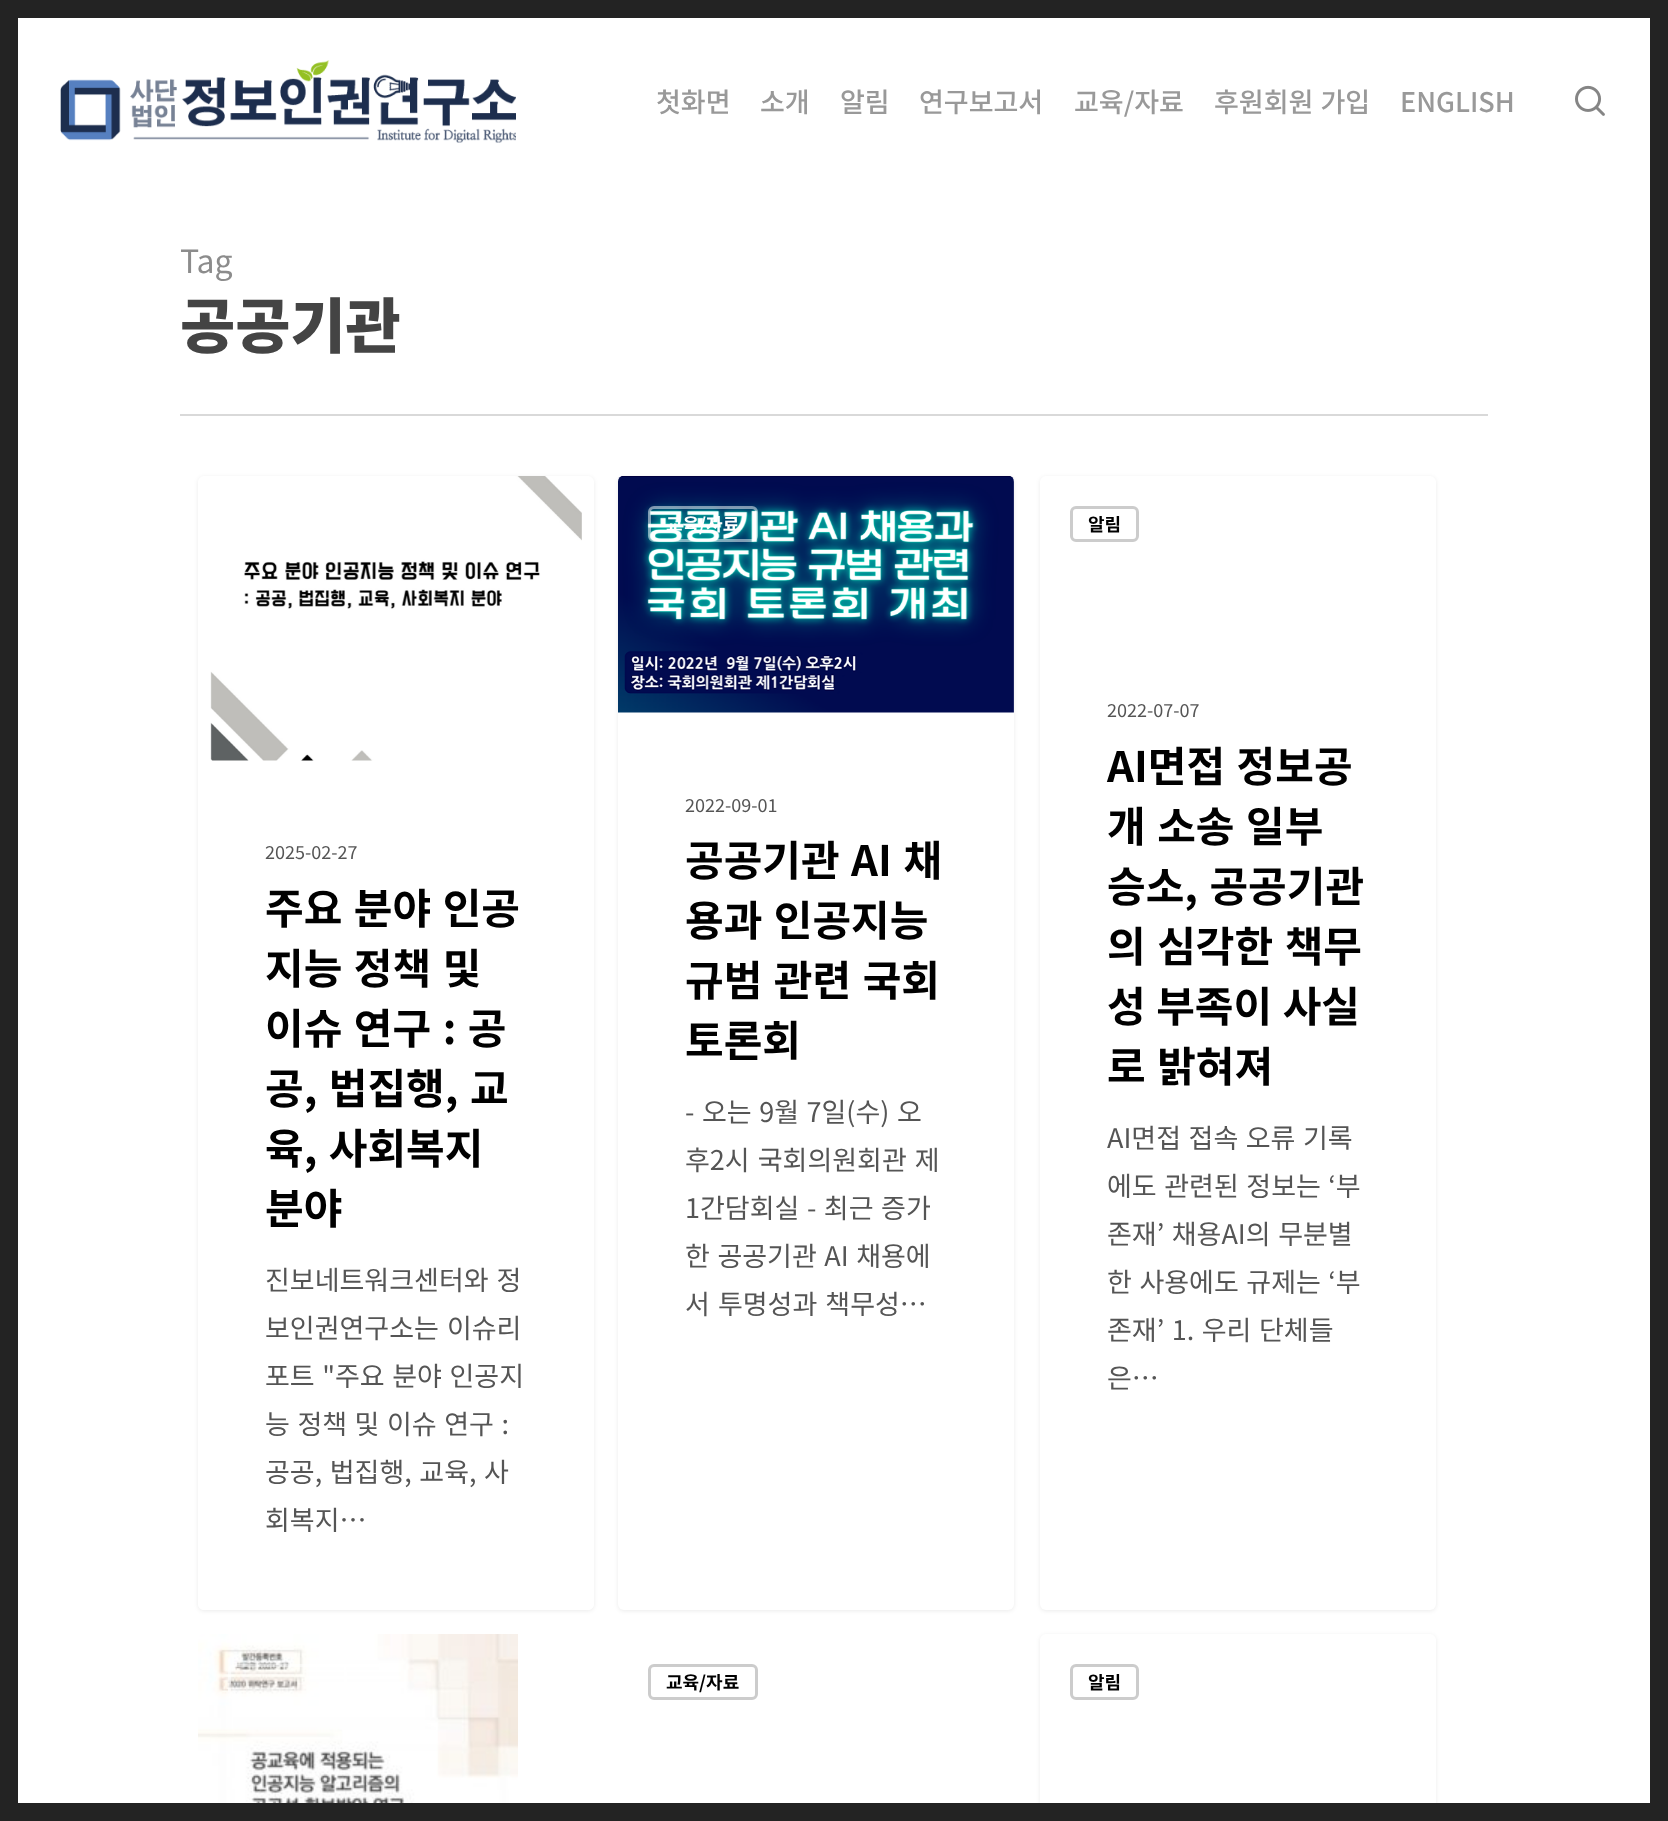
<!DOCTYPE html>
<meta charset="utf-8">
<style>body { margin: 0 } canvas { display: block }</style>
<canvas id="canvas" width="1668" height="1821"></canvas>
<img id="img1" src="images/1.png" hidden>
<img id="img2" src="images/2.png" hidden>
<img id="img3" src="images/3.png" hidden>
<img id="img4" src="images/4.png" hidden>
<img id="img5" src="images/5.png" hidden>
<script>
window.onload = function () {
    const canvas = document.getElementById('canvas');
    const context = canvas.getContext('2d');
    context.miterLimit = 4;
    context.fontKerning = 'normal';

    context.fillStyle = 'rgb(255, 255, 255)';
    context.fillRect(0, 0, 1668, 1821);
    context.fillStyle = 'rgb(35, 35, 35)';
    context.fillRect(0, 0, 18, 1821);
    context.fillRect(18, 0, 1632, 18);
    context.fillRect(1650, 0, 18, 1803);
    context.drawImage(document.getElementById('img1'), 60, 60, 456, 83);
    context.drawImage(document.getElementById('img2'), 1575, 85, 30, 31);
    context.fillStyle = 'rgb(217, 217, 217)';
    context.fillRect(180, 414, 1308, 2);
    context.fillStyle = 'rgba(0, 0, 0, 0.08)';
    context.filter = 'blur(2px)';
    context.beginPath();
    context.roundRect(198, 477, 396, 1134, 6);
    context.fill();
    context.filter = 'none';
    context.fillStyle = 'rgb(255, 255, 255)';
    context.beginPath();
    context.roundRect(198, 476, 396, 1134, 6);
    context.fill();
    context.drawImage(document.getElementById('img3'), 210, 476, 372, 285);
    context.beginPath();
    context.roundRect(198, 761, 396, 849, [0, 0, 6, 6]);
    context.fill();
    context.fillStyle = 'rgba(0, 0, 0, 0.08)';
    context.filter = 'blur(2px)';
    context.beginPath();
    context.roundRect(618, 477, 396, 1134, 6);
    context.fill();
    context.filter = 'none';
    context.fillStyle = 'rgb(255, 255, 255)';
    context.beginPath();
    context.roundRect(618, 476, 396, 1134, 6);
    context.fill();
    context.drawImage(document.getElementById('img4'), 618, 476, 396, 237);
    context.beginPath();
    context.roundRect(649.5, 507.5, 107, 33, 4.5);
    context.strokeStyle = 'rgba(255, 255, 255, 0.5)';
    context.lineWidth = 3;
    context.stroke();
    context.fillStyle = 'rgba(0, 0, 0, 0.08)';
    context.filter = 'blur(2px)';
    context.beginPath();
    context.roundRect(1040, 477, 396, 1134, 6);
    context.fill();
    context.filter = 'none';
    context.fillStyle = 'rgb(255, 255, 255)';
    context.beginPath();
    context.roundRect(1040, 476, 396, 1134, 6);
    context.fill();
    context.beginPath();
    context.roundRect(1071.5, 507.5, 66, 33, 4.5);
    context.strokeStyle = 'rgb(204, 204, 204)';
    context.stroke();
    context.drawImage(document.getElementById('img5'), 198, 1634, 320, 169);
    context.beginPath();
    context.roundRect(229.5, 1665.5, 116, 33, 4.5);
    context.strokeStyle = 'rgba(255, 255, 255, 0.5)';
    context.stroke();
    context.beginPath();
    context.roundRect(649.5, 1665.5, 107, 33, 4.5);
    context.strokeStyle = 'rgb(204, 204, 204)';
    context.stroke();
    context.fillStyle = 'rgba(0, 0, 0, 0.08)';
    context.filter = 'blur(2px)';
    context.beginPath();
    context.roundRect(1040, 1635, 396, 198, 6);
    context.fill();
    context.filter = 'none';
    context.fillStyle = 'rgb(255, 255, 255)';
    context.beginPath();
    context.roundRect(1040, 1634, 396, 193, 6);
    context.fill();
    context.beginPath();
    context.roundRect(1071.5, 1665.5, 66, 33, 4.5);
    context.stroke();
    context.fillStyle = 'rgb(35, 35, 35)';
    context.fillRect(18, 1803, 1650, 18);
    context.font = '500 27px Noto Sans KR';
    context.fillStyle = 'rgb(153, 153, 153)';
    context.fillText('첫화면', 656, 112);
    context.fillText('소개', 760, 112);
    context.fillText('알림', 840, 112);
    context.fillText('연구보고서', 919, 112);
    context.fillText('교육/자료', 1074, 112);
    context.wordSpacing = '1px';
    context.fillText('후원회원 가입', 1214, 112);
    context.wordSpacing = '0px';
    context.fillText('ENGLISH', 1400, 112);
    context.font = '32px Noto Sans KR';
    context.fillStyle = 'rgb(140, 140, 140)';
    context.fillText('Tag', 180, 273);
    context.font = '900 60px Noto Sans KR';
    context.fillStyle = 'rgb(68, 68, 68)';
    context.fillText('공공기관', 180, 348);
    context.font = '18px Noto Sans KR';
    context.fillStyle = 'rgb(85, 85, 85)';
    context.fillText('2025-02-27', 265, 859);
    context.wordSpacing = '2px';
    context.font = 'bold 42px Noto Sans KR';
    context.fillStyle = 'rgb(0, 0, 0)';
    context.fillText('주요 분야 인공', 265, 924);
    context.fillText('지능 정책 및', 265, 984);
    context.fillText('이슈 연구 : 공', 265, 1044);
    context.fillText('공, 법집행, 교', 265, 1104);
    context.fillText('육, 사회복지', 265, 1164);
    context.wordSpacing = '0px';
    context.fillText('분야', 265, 1224);
    context.wordSpacing = '2px';
    context.font = '27px Noto Sans KR';
    context.fillStyle = 'rgb(85, 85, 85)';
    context.fillText('진보네트워크센터와 정', 265, 1290);
    context.fillText('보인권연구소는 이슈리', 265, 1338);
    context.wordSpacing = '1.5px';
    context.fillText('포트 "주요 분야 인공지', 265, 1386);
    context.fillText('능 정책 및 이슈 연구 :', 265, 1434);
    context.fillText('공공, 법집행, 교육, 사', 265, 1482);
    context.wordSpacing = '0px';
    context.fillText('회복지…', 265, 1530);
    context.font = 'bold 18px Noto Sans KR';
    context.fillStyle = 'rgb(255, 255, 255)';
    context.fillText('교육/자료', 666, 531);
    context.font = '18px Noto Sans KR';
    context.fillStyle = 'rgb(85, 85, 85)';
    context.fillText('2022-09-01', 685, 812);
    context.wordSpacing = '2px';
    context.font = 'bold 42px Noto Sans KR';
    context.fillStyle = 'rgb(0, 0, 0)';
    context.fillText('공공기관 AI 채', 685, 876);
    context.fillText('용과 인공지능', 685, 936);
    context.fillText('규범 관련 국회', 685, 996);
    context.wordSpacing = '0px';
    context.fillText('토론회', 685, 1056);
    context.wordSpacing = '1.5px';
    context.font = '27px Noto Sans KR';
    context.fillStyle = 'rgb(85, 85, 85)';
    context.fillText('- 오는 9월 7일(수) 오', 685, 1122);
    context.wordSpacing = '2px';
    context.fillText('후2시 국회의원회관 제', 685, 1170);
    context.wordSpacing = '1.5px';
    context.fillText('1간담회실 - 최근 증가', 685, 1218);
    context.fillText('한 공공기관 AI 채용에', 685, 1266);
    context.wordSpacing = '2px';
    context.fillText('서 투명성과 책무성…', 685, 1314);
    context.wordSpacing = '0px';
    context.font = 'bold 18px Noto Sans KR';
    context.fillStyle = 'rgb(0, 0, 0)';
    context.fillText('알림', 1088, 531);
    context.font = '18px Noto Sans KR';
    context.fillStyle = 'rgb(85, 85, 85)';
    context.fillText('2022-07-07', 1107, 717);
    context.wordSpacing = '2px';
    context.font = 'bold 42px Noto Sans KR';
    context.fillStyle = 'rgb(0, 0, 0)';
    context.fillText('AI면접 정보공', 1107, 782);
    context.fillText('개 소송 일부', 1107, 842);
    context.fillText('승소, 공공기관', 1107, 902);
    context.fillText('의 심각한 책무', 1107, 962);
    context.wordSpacing = '1px';
    context.fillText('성 부족이 사실', 1107, 1022);
    context.wordSpacing = '2px';
    context.fillText('로 밝혀져', 1107, 1082);
    context.wordSpacing = '1.5px';
    context.font = '27px Noto Sans KR';
    context.fillStyle = 'rgb(85, 85, 85)';
    context.fillText('AI면접 접속 오류 기록', 1107, 1148);
    context.fillText('에도 관련된 정보는 ‘부', 1107, 1196);
    context.fillText('존재’ 채용AI의 무분별', 1107, 1244);
    context.fillText('한 사용에도 규제는 ‘부', 1107, 1292);
    context.fillText('존재’ 1. 우리 단체들', 1107, 1340);
    context.wordSpacing = '0px';
    context.fillText('은…', 1107, 1388);
    context.font = 'bold 18px Noto Sans KR';
    context.fillStyle = 'rgb(0, 0, 0)';
    context.fillText('교육/자료', 666, 1689);
    context.fillText('알림', 1088, 1689);
};
</script>
